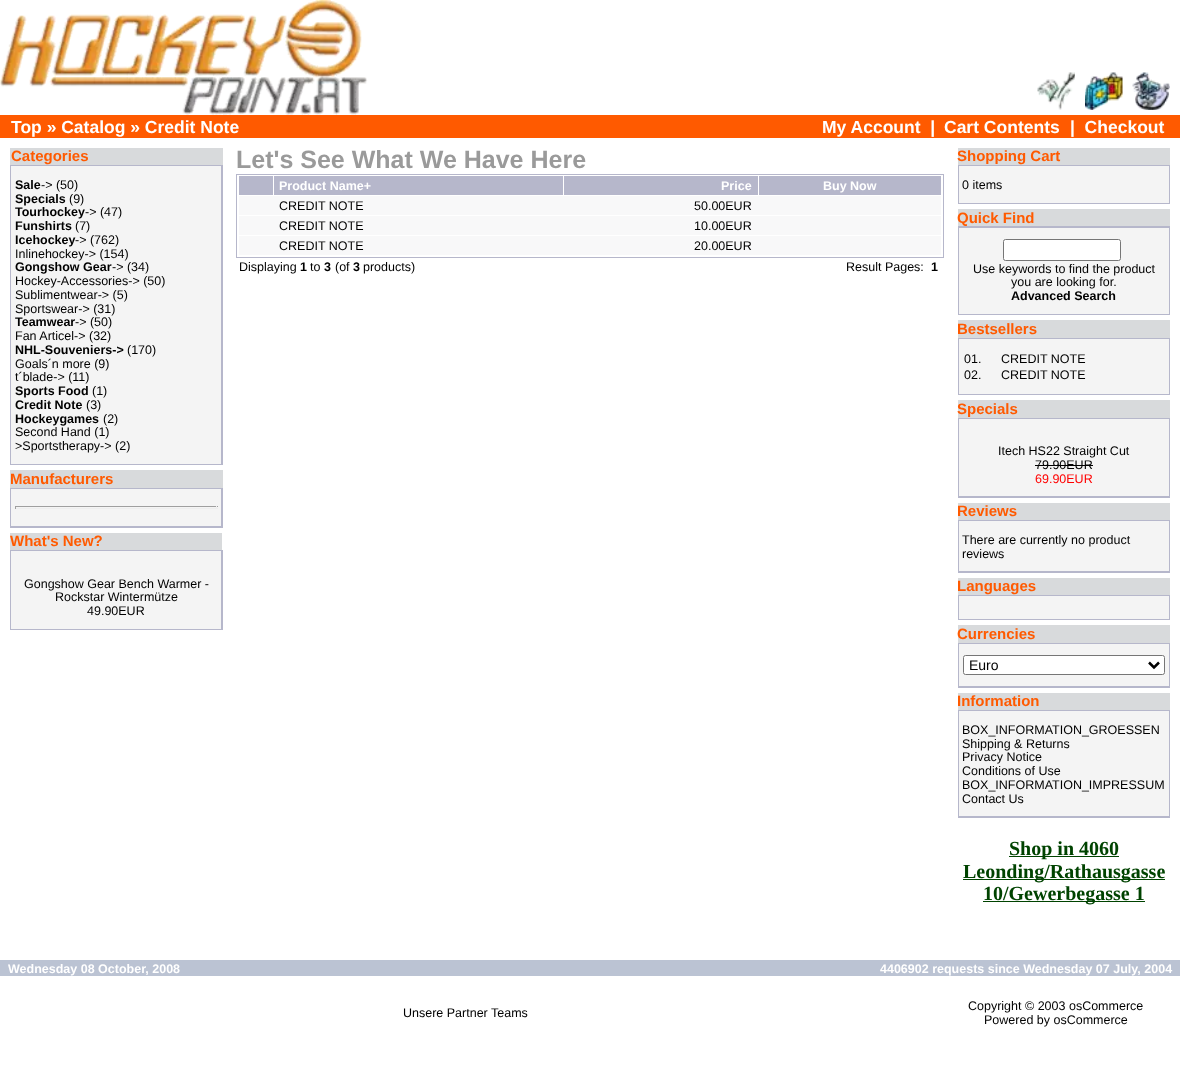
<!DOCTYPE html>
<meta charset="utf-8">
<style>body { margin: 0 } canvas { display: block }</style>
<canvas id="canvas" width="1180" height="1076"></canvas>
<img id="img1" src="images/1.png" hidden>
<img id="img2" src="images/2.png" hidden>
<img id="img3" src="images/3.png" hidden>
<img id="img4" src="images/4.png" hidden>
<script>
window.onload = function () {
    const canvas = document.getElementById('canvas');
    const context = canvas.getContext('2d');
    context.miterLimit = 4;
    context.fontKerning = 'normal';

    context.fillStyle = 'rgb(255, 255, 255)';
    context.fillRect(0, 0, 1180, 1076);
    context.drawImage(document.getElementById('img1'), 0, 0, 368, 115);
    context.drawImage(document.getElementById('img2'), 1037, 72, 38, 38);
    context.drawImage(document.getElementById('img3'), 1085, 72, 38, 38);
    context.drawImage(document.getElementById('img4'), 1132, 72, 38, 38);
    context.fillStyle = 'rgb(255, 90, 0)';
    context.fillRect(0, 115, 1180, 23);
    context.fillStyle = 'rgb(216, 218, 220)';
    context.fillRect(10, 148, 213, 17);
    context.fillStyle = 'rgb(182, 183, 203)';
    context.fillRect(10, 165, 213, 300);
    context.fillStyle = 'rgb(244, 244, 244)';
    context.fillRect(11, 166, 210, 298);
    context.fillStyle = 'rgb(216, 218, 220)';
    context.fillRect(10, 470, 213, 18);
    context.fillStyle = 'rgb(182, 183, 203)';
    context.fillRect(10, 488, 213, 40);
    context.fillStyle = 'rgb(244, 244, 244)';
    context.fillRect(11, 489, 210, 37);
    context.fillStyle = 'rgb(159, 159, 159)';
    context.fillRect(15, 506, 203, 1);
    context.fillStyle = 'rgb(238, 238, 238)';
    context.fillRect(216, 506, 1, 3);
    context.fillRect(15, 508, 203, 1);
    context.fillStyle = 'rgb(159, 159, 159)';
    context.fillRect(15, 506, 1, 3);
    context.fillStyle = 'rgb(216, 218, 220)';
    context.fillRect(10, 533, 212, 17);
    context.fillStyle = 'rgb(182, 183, 203)';
    context.fillRect(10, 550, 213, 80);
    context.fillStyle = 'rgb(244, 244, 244)';
    context.fillRect(11, 551, 210, 78);
    context.strokeStyle = 'rgb(182, 183, 203)';
    context.strokeRect(236.5, 174.5, 707, 83);
    context.fillStyle = 'rgb(182, 183, 203)';
    context.fillRect(239, 176, 34, 19);
    context.fillRect(274, 176, 289, 19);
    context.fillRect(564, 176, 194, 19);
    context.fillRect(759, 176, 182, 19);
    context.fillStyle = 'rgb(248, 248, 249)';
    context.fillRect(239, 196, 702, 19);
    context.fillRect(239, 216, 702, 19);
    context.fillRect(239, 236, 702, 19);
    context.fillStyle = 'rgb(216, 218, 220)';
    context.fillRect(958, 148, 212, 17);
    context.fillStyle = 'rgb(182, 183, 203)';
    context.fillRect(958, 165, 212, 39);
    context.fillStyle = 'rgb(244, 244, 244)';
    context.fillRect(959, 166, 210, 37);
    context.fillStyle = 'rgb(216, 218, 220)';
    context.fillRect(958, 209, 212, 17);
    context.fillStyle = 'rgb(182, 183, 203)';
    context.fillRect(958, 226, 212, 89);
    context.fillStyle = 'rgb(244, 244, 244)';
    context.fillRect(959, 228, 210, 86);
    context.fillStyle = 'rgb(255, 255, 255)';
    context.beginPath();
    context.roundRect(1003.5, 239.5, 117, 21, 2);
    context.fill();
    context.strokeStyle = 'rgb(118, 118, 118)';
    context.stroke();
    context.fillStyle = 'rgb(216, 218, 220)';
    context.fillRect(958, 320, 212, 18);
    context.fillStyle = 'rgb(182, 183, 203)';
    context.fillRect(958, 338, 212, 57);
    context.fillStyle = 'rgb(244, 244, 244)';
    context.fillRect(959, 339, 210, 55);
    context.fillStyle = 'rgb(216, 218, 220)';
    context.fillRect(958, 400, 212, 18);
    context.fillStyle = 'rgb(182, 183, 203)';
    context.fillRect(958, 418, 212, 80);
    context.fillStyle = 'rgb(244, 244, 244)';
    context.fillRect(959, 419, 210, 77);
    context.fillStyle = 'rgb(0, 0, 0)';
    context.fillRect(1035, 465, 58, 1);
    context.fillStyle = 'rgb(216, 218, 220)';
    context.fillRect(958, 503, 212, 17);
    context.fillStyle = 'rgb(182, 183, 203)';
    context.fillRect(958, 520, 212, 53);
    context.fillStyle = 'rgb(244, 244, 244)';
    context.fillRect(959, 521, 210, 50);
    context.fillStyle = 'rgb(216, 218, 220)';
    context.fillRect(958, 578, 212, 17);
    context.fillStyle = 'rgb(182, 183, 203)';
    context.fillRect(958, 595, 212, 25);
    context.fillStyle = 'rgb(244, 244, 244)';
    context.fillRect(959, 596, 210, 23);
    context.fillStyle = 'rgb(216, 218, 220)';
    context.fillRect(958, 625, 212, 18);
    context.fillStyle = 'rgb(182, 183, 203)';
    context.fillRect(958, 643, 212, 45);
    context.fillStyle = 'rgb(244, 244, 244)';
    context.fillRect(959, 644, 210, 42);
    context.fillStyle = 'rgb(255, 255, 255)';
    context.beginPath();
    context.roundRect(963.5, 655.5, 201, 19, 2);
    context.fill();
    context.stroke();
    context.beginPath();
    context.moveTo(1149, 662.5);
    context.lineTo(1154, 667.5);
    context.lineTo(1159, 662.5);
    context.strokeStyle = 'rgb(0, 0, 0)';
    context.lineWidth = 2.5;
    context.stroke();
    context.fillStyle = 'rgb(216, 218, 220)';
    context.fillRect(958, 693, 212, 17);
    context.fillStyle = 'rgb(182, 183, 203)';
    context.fillRect(958, 710, 212, 108);
    context.fillStyle = 'rgb(244, 244, 244)';
    context.fillRect(959, 711, 210, 105);
    context.fillStyle = 'rgb(0, 67, 0)';
    context.fillRect(1009, 856, 110, 1);
    context.fillRect(963, 879, 202, 1);
    context.fillRect(983, 901, 162, 1);
    context.fillStyle = 'rgb(187, 195, 211)';
    context.fillRect(0, 960, 1180, 16);
    context.font = 'bold 17.5px Liberation Sans';
    context.fillStyle = 'rgb(255, 255, 255)';
    context.fillText('Top » Catalog » Credit Note', 11, 133);
    context.fillText('My Account  |', 822, 133);
    context.fillText('Cart Contents', 944, 133);
    context.fillText('|  Checkout', 1070, 133);
    context.font = 'bold 15px Liberation Sans';
    context.fillStyle = 'rgb(255, 90, 0)';
    context.fillText('Categories', 11, 161);
    context.font = 'bold 12.5px Liberation Sans';
    context.fillStyle = 'rgb(0, 0, 0)';
    context.fillText('Sale', 15, 189);
    context.font = '12.5px Liberation Sans';
    context.fillText('-> (50)', 41, 189);
    context.font = 'bold 12.5px Liberation Sans';
    context.fillText('Specials', 15, 203);
    context.font = '12.5px Liberation Sans';
    context.fillText('(9)', 69, 203);
    context.font = 'bold 12.5px Liberation Sans';
    context.fillText('Tourhockey', 15, 216);
    context.font = '12.5px Liberation Sans';
    context.fillText('-> (47)', 85, 216);
    context.font = 'bold 12.5px Liberation Sans';
    context.fillText('Funshirts', 15, 230);
    context.font = '12.5px Liberation Sans';
    context.fillText('(7)', 75, 230);
    context.font = 'bold 12.5px Liberation Sans';
    context.fillText('Icehockey', 15, 244);
    context.font = '12.5px Liberation Sans';
    context.fillText('-> (762)', 75, 244);
    context.fillText('Inlinehockey-> (154)', 15, 258);
    context.font = 'bold 12.5px Liberation Sans';
    context.fillText('Gongshow Gear', 15, 271);
    context.font = '12.5px Liberation Sans';
    context.fillText('-> (34)', 112, 271);
    context.fillText('Hockey-Accessories-> (50)', 15, 285);
    context.fillText('Sublimentwear-> (5)', 15, 299);
    context.fillText('Sportswear-> (31)', 15, 313);
    context.font = 'bold 12.5px Liberation Sans';
    context.fillText('Teamwear', 15, 326);
    context.font = '12.5px Liberation Sans';
    context.fillText('-> (50)', 75, 326);
    context.fillText('Fan Articel-> (32)', 15, 340);
    context.font = 'bold 12.5px Liberation Sans';
    context.fillText('NHL-Souveniers->', 15, 354);
    context.font = '12.5px Liberation Sans';
    context.fillText('(170)', 127, 354);
    context.fillText('Goals´n more (9)', 15, 368);
    context.fillText('t´blade-> (11)', 15, 381);
    context.font = 'bold 12.5px Liberation Sans';
    context.fillText('Sports Food', 15, 395);
    context.font = '12.5px Liberation Sans';
    context.fillText('(1)', 92, 395);
    context.font = 'bold 12.5px Liberation Sans';
    context.fillText('Credit Note', 15, 409);
    context.font = '12.5px Liberation Sans';
    context.fillText('(3)', 86, 409);
    context.font = 'bold 12.5px Liberation Sans';
    context.fillText('Hockeygames', 15, 423);
    context.font = '12.5px Liberation Sans';
    context.fillText('(2)', 103, 423);
    context.fillText('Second Hand (1)', 15, 436);
    context.fillText('>Sportstherapy-> (2)', 15, 450);
    context.font = 'bold 15px Liberation Sans';
    context.fillStyle = 'rgb(255, 90, 0)';
    context.fillText('Manufacturers', 10, 484);
    context.fillText('What\'s New?', 10, 546);
    context.font = '12.5px Liberation Sans';
    context.fillStyle = 'rgb(0, 0, 0)';
    context.fillText('Gongshow Gear Bench Warmer -', 24, 588);
    context.fillText('Rockstar Wintermütze', 55, 601);
    context.fillText('49.90EUR', 87, 615);
    context.font = 'bold 25px Liberation Sans';
    context.fillStyle = 'rgb(154, 154, 154)';
    context.fillText('Let\'s See What We Have Here', 236, 168);
    context.font = 'bold 12.5px Liberation Sans';
    context.fillStyle = 'rgb(255, 255, 255)';
    context.fillText('Product Name+', 279, 190);
    context.fillText('Price', 721, 190);
    context.fillText('Buy Now', 823, 190);
    context.font = '12.5px Liberation Sans';
    context.fillStyle = 'rgb(0, 0, 0)';
    context.fillText('CREDIT NOTE', 279, 210);
    context.fillText('50.00EUR', 694, 210);
    context.fillText('CREDIT NOTE', 279, 230);
    context.fillText('10.00EUR', 694, 230);
    context.fillText('CREDIT NOTE', 279, 250);
    context.fillText('20.00EUR', 694, 250);
    context.fillText('Displaying', 239, 271);
    context.font = 'bold 12.5px Liberation Sans';
    context.fillText('1', 300, 271);
    context.font = '12.5px Liberation Sans';
    context.fillText('to', 310, 271);
    context.font = 'bold 12.5px Liberation Sans';
    context.fillText('3', 324, 271);
    context.font = '12.5px Liberation Sans';
    context.fillText('(of', 335, 271);
    context.font = 'bold 12.5px Liberation Sans';
    context.fillText('3', 353, 271);
    context.font = '12.5px Liberation Sans';
    context.fillText('products)', 363, 271);
    context.fillText('Result Pages:', 846, 271);
    context.font = 'bold 12.5px Liberation Sans';
    context.fillText('1', 931, 271);
    context.font = 'bold 15px Liberation Sans';
    context.fillStyle = 'rgb(255, 90, 0)';
    context.fillText('Shopping Cart', 957, 161);
    context.font = '12.5px Liberation Sans';
    context.fillStyle = 'rgb(0, 0, 0)';
    context.fillText('0 items', 962, 189);
    context.font = 'bold 15px Liberation Sans';
    context.fillStyle = 'rgb(255, 90, 0)';
    context.fillText('Quick Find', 957, 223);
    context.font = '12.5px Liberation Sans';
    context.fillStyle = 'rgb(0, 0, 0)';
    context.fillText('Use keywords to find the product', 973, 273);
    context.fillText('you are looking for.', 1011, 286);
    context.font = 'bold 12.5px Liberation Sans';
    context.fillText('Advanced Search', 1011, 300);
    context.font = 'bold 15px Liberation Sans';
    context.fillStyle = 'rgb(255, 90, 0)';
    context.fillText('Bestsellers', 957, 334);
    context.font = '12.5px Liberation Sans';
    context.fillStyle = 'rgb(0, 0, 0)';
    context.fillText('01.', 964, 363);
    context.fillText('CREDIT NOTE', 1001, 363);
    context.fillText('02.', 964, 379);
    context.fillText('CREDIT NOTE', 1001, 379);
    context.font = 'bold 15px Liberation Sans';
    context.fillStyle = 'rgb(255, 90, 0)';
    context.fillText('Specials', 957, 414);
    context.font = '12.5px Liberation Sans';
    context.fillStyle = 'rgb(0, 0, 0)';
    context.fillText('Itech HS22 Straight Cut', 998, 455);
    context.fillText('79.90EUR', 1035, 469);
    context.fillStyle = 'rgb(255, 0, 0)';
    context.fillText('69.90EUR', 1035, 483);
    context.font = 'bold 15px Liberation Sans';
    context.fillStyle = 'rgb(255, 90, 0)';
    context.fillText('Reviews', 957, 516);
    context.font = '12.5px Liberation Sans';
    context.fillStyle = 'rgb(0, 0, 0)';
    context.fillText('There are currently no product', 962, 544);
    context.fillText('reviews', 962, 558);
    context.font = 'bold 15px Liberation Sans';
    context.fillStyle = 'rgb(255, 90, 0)';
    context.fillText('Languages', 957, 591);
    context.fillText('Currencies', 957, 639);
    context.font = '14px Liberation Sans';
    context.fillStyle = 'rgb(0, 0, 0)';
    context.fillText('Euro', 969, 670);
    context.font = 'bold 15px Liberation Sans';
    context.fillStyle = 'rgb(255, 90, 0)';
    context.fillText('Information', 957, 706);
    context.font = '12.5px Liberation Sans';
    context.fillStyle = 'rgb(0, 0, 0)';
    context.fillText('BOX_INFORMATION_GROESSEN', 962, 734);
    context.fillText('Shipping & Returns', 962, 748);
    context.fillText('Privacy Notice', 962, 761);
    context.fillText('Conditions of Use', 962, 775);
    context.fillText('BOX_INFORMATION_IMPRESSUM', 962, 789);
    context.fillText('Contact Us', 962, 803);
    context.font = 'bold 20px Liberation Serif';
    context.fillStyle = 'rgb(0, 67, 0)';
    context.fillText('Shop in 4060', 1009, 855);
    context.fillText('Leonding/Rathausgasse', 963, 878);
    context.fillText('10/Gewerbegasse 1', 983, 900);
    context.font = 'bold 12.5px Liberation Sans';
    context.fillStyle = 'rgb(255, 255, 255)';
    context.fillText('Wednesday 08 October, 2008', 8, 973);
    context.fillText('4406902 requests since Wednesday 07 July, 2004', 880, 973);
    context.font = '12.5px Liberation Sans';
    context.fillStyle = 'rgb(0, 0, 0)';
    context.fillText('Unsere Partner Teams', 403, 1017);
    context.fillText('Copyright © 2003 osCommerce', 968, 1010);
    context.fillText('Powered by osCommerce', 984, 1024);
};
</script>
